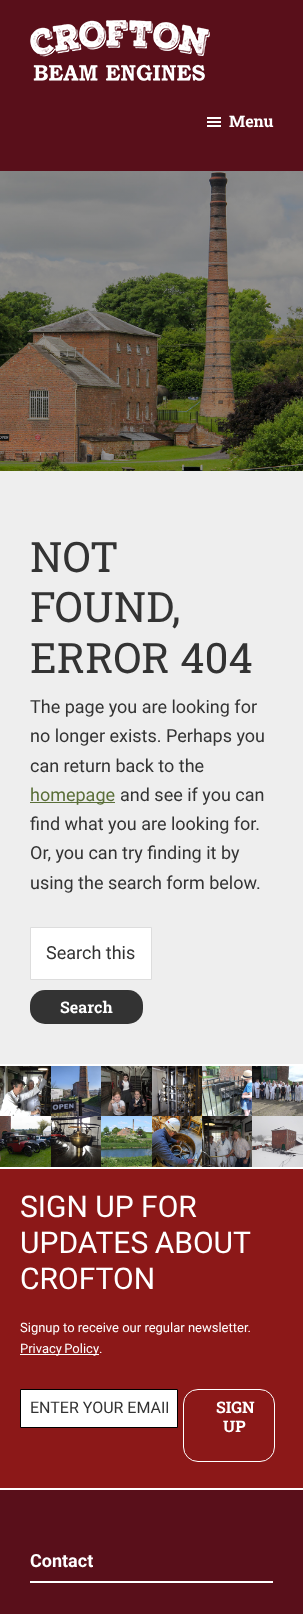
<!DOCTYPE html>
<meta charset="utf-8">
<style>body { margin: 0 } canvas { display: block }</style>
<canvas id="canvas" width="303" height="1614"></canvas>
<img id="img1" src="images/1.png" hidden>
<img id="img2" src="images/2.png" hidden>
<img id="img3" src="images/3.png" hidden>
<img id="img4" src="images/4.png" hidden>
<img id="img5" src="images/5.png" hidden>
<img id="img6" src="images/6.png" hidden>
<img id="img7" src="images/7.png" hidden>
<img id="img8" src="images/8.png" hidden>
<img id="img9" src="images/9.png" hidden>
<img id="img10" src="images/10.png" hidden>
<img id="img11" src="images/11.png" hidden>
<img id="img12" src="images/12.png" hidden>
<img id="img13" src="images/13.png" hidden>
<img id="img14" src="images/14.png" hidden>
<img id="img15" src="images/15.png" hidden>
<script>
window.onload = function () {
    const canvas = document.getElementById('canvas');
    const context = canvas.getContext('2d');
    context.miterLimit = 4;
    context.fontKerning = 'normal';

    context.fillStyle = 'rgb(238, 238, 238)';
    context.fillRect(0, 0, 303, 1614);
    context.fillStyle = 'rgb(89, 15, 26)';
    context.fillRect(0, 0, 303, 171);
    context.drawImage(document.getElementById('img1'), 30, 20, 180, 61);
    context.drawImage(document.getElementById('img2'), 207, 117, 14, 10);
    context.drawImage(document.getElementById('img3'), 0, 171, 303, 300);
    context.fillStyle = 'rgb(90, 111, 56)';
    context.fillRect(30, 802, 85, 1);
    context.fillStyle = 'rgb(255, 255, 255)';
    context.beginPath();
    context.rect(30.5, 927.5, 121, 52);
    context.fill();
    context.strokeStyle = 'rgb(221, 221, 221)';
    context.stroke();
    context.fillStyle = 'rgb(51, 51, 51)';
    context.beginPath();
    context.roundRect(30, 990, 113, 34, 15);
    context.fill();
    context.fillStyle = 'rgb(255, 255, 255)';
    context.fillRect(0, 1064, 303, 2);
    context.fillRect(0, 1167, 303, 2);
    context.drawImage(document.getElementById('img4'), 0, 1066, 51, 50);
    context.drawImage(document.getElementById('img5'), 51, 1066, 50, 50);
    context.drawImage(document.getElementById('img6'), 101, 1066, 51, 50);
    context.drawImage(document.getElementById('img7'), 152, 1066, 50, 50);
    context.drawImage(document.getElementById('img8'), 202, 1066, 50, 50);
    context.drawImage(document.getElementById('img9'), 252, 1066, 51, 50);
    context.drawImage(document.getElementById('img10'), 0, 1116, 51, 51);
    context.drawImage(document.getElementById('img11'), 51, 1116, 50, 51);
    context.drawImage(document.getElementById('img12'), 101, 1116, 51, 51);
    context.drawImage(document.getElementById('img13'), 152, 1116, 50, 51);
    context.drawImage(document.getElementById('img14'), 202, 1116, 50, 51);
    context.drawImage(document.getElementById('img15'), 252, 1116, 51, 51);
    context.fillStyle = 'rgb(140, 24, 24)';
    context.fillRect(0, 1169, 303, 319);
    context.fillStyle = 'rgb(255, 255, 255)';
    context.fillRect(0, 1488, 303, 2);
    context.fillRect(20, 1354, 79, 1);
    context.beginPath();
    context.rect(20.5, 1389.5, 157, 38);
    context.fill();
    context.strokeStyle = 'rgb(0, 0, 0)';
    context.stroke();
    context.beginPath();
    context.roundRect(183.5, 1389.5, 91, 72, 14.5);
    context.strokeStyle = 'rgb(255, 255, 255)';
    context.stroke();
    context.fillStyle = 'rgb(89, 15, 26)';
    context.fillRect(0, 1490, 303, 124);
    context.fillStyle = 'rgb(255, 255, 255)';
    context.fillRect(30, 1581, 243, 2);
    context.font = 'bold 16px Roboto Slab';
    context.fillText('Menu', 229, 127);
    context.font = '42px Roboto Slab';
    context.fillStyle = 'rgb(51, 51, 51)';
    context.fillText('NOT', 30, 572);
    context.fillText('FOUND,', 30, 622);
    context.fillText('ERROR 404', 30, 673);
    context.font = '18px Roboto';
    context.fillText('The page you are looking for', 30, 713);
    context.fillText('no longer exists. Perhaps you', 30, 742);
    context.fillText('can return back to the', 30, 772);
    context.fillStyle = 'rgb(90, 111, 56)';
    context.fillText('homepage', 30, 801);
    context.fillStyle = 'rgb(51, 51, 51)';
    context.fillText('and see if you can', 120, 801);
    context.fillText('find what you are looking for.', 30, 830);
    context.fillText('Or, you can try finding it by', 30, 859);
    context.fillText('using the search form below.', 30, 889);
    context.fillText('Search this', 46, 959);
    context.font = 'bold 16px Roboto Slab';
    context.fillStyle = 'rgb(255, 255, 255)';
    context.fillText('Search', 60, 1013);
    context.font = '30px Roboto';
    context.fillText('SIGN UP FOR', 20, 1217);
    context.wordSpacing = '-1px';
    context.fillText('UPDATES ABOUT', 20, 1253);
    context.wordSpacing = '0px';
    context.fillText('CROFTON', 20, 1289);
    context.font = '13px Roboto';
    context.fillText('Signup to receive our regular newsletter.', 20, 1332);
    context.wordSpacing = '-1px';
    context.fillText('Privacy Policy', 20, 1353);
    context.wordSpacing = '0px';
    context.fillText('.', 99, 1353);
    context.save();
    context.beginPath();
    context.rect(30, 1398, 138, 19);
    context.clip();
    context.font = '16px Roboto';
    context.fillStyle = 'rgb(51, 51, 51)';
    context.fillText('ENTER YOUR EMAIL', 30, 1413);
    context.restore();
    context.font = 'bold 16px Roboto Slab';
    context.fillText('SIGN', 216, 1413);
    context.fillText('UP', 223, 1432);
    context.font = 'bold 18px Roboto';
    context.fillText('Contact', 30, 1567);
};
</script>
